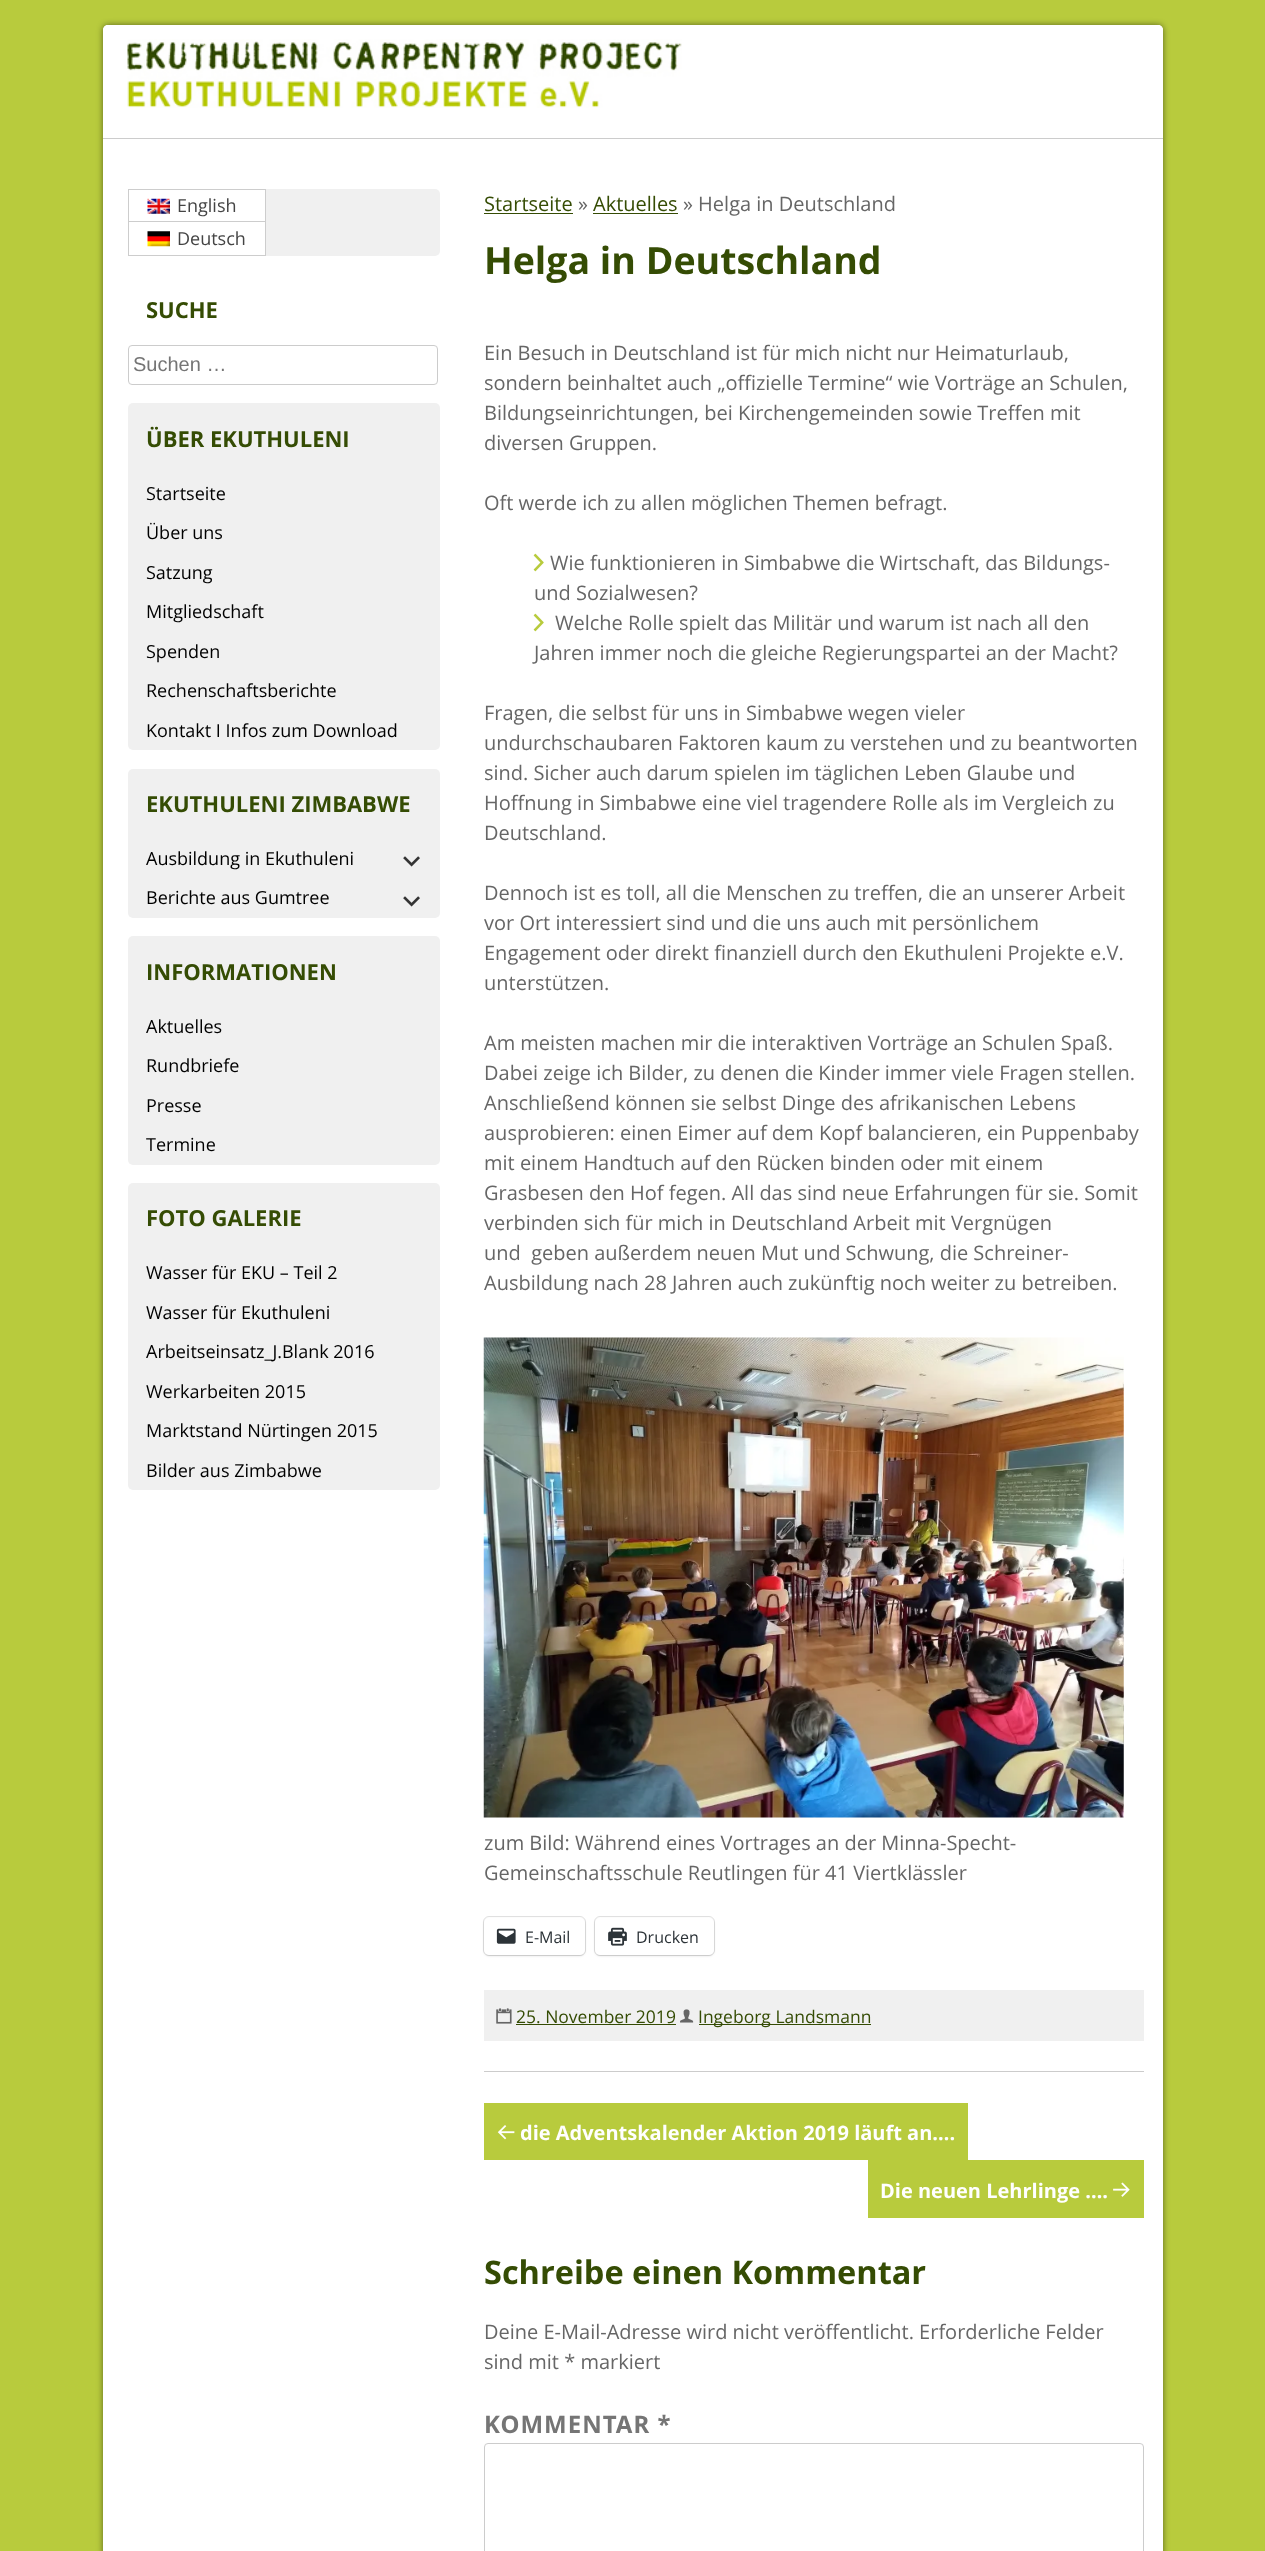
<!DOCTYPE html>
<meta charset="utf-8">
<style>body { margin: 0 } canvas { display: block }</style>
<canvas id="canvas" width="1265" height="2551"></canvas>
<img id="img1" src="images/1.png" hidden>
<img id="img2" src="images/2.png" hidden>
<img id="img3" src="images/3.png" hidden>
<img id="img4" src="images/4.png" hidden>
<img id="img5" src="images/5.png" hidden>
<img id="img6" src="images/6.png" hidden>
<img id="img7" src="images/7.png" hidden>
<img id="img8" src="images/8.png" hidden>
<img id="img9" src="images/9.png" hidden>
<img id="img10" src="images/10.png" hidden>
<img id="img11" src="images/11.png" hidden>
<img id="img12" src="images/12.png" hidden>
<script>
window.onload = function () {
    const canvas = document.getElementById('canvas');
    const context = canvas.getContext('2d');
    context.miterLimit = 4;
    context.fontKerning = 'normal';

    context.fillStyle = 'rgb(184, 203, 61)';
    context.fillRect(0, 0, 1265, 2551);
    context.fillStyle = 'rgba(0, 0, 0, 0.5)';
    context.filter = 'blur(3px)';
    context.beginPath();
    context.roundRect(103, 25, 1060, 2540, 5);
    context.fill();
    context.filter = 'none';
    context.fillStyle = 'rgb(255, 255, 255)';
    context.beginPath();
    context.roundRect(103, 25, 1060, 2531, 5);
    context.fill();
    context.beginPath();
    context.roundRect(103, 25, 1060, 114, [5, 5, 0, 0]);
    context.fill();
    context.fillStyle = 'rgb(204, 204, 204)';
    context.fillRect(103, 138, 1060, 1);
    context.drawImage(document.getElementById('img1'), 127, 39, 555, 69);
    context.fillStyle = 'rgb(240, 240, 240)';
    context.beginPath();
    context.roundRect(128, 189, 312, 67, 5);
    context.fill();
    context.fillStyle = 'rgb(205, 205, 205)';
    context.fillRect(128, 189, 138, 1);
    context.fillRect(265, 189, 1, 67);
    context.fillRect(128, 189, 1, 67);
    context.fillStyle = 'rgb(255, 255, 255)';
    context.fillRect(129, 190, 136, 65);
    context.fillStyle = 'rgb(205, 205, 205)';
    context.fillRect(129, 221, 136, 1);
    context.drawImage(document.getElementById('img2'), 147, 198, 23, 16);
    context.fillRect(129, 255, 136, 1);
    context.drawImage(document.getElementById('img3'), 147, 231, 23, 16);
    context.beginPath();
    context.roundRect(128.5, 345.5, 309, 39, 3.5);
    context.strokeStyle = 'rgb(204, 204, 204)';
    context.stroke();
    context.fillStyle = 'rgb(240, 240, 240)';
    context.beginPath();
    context.roundRect(128, 403, 312, 347, 5);
    context.fill();
    context.beginPath();
    context.roundRect(128, 769, 312, 149, 5);
    context.fill();
    context.drawImage(document.getElementById('img4'), 403, 856, 17, 11);
    context.drawImage(document.getElementById('img4'), 403, 896, 17, 11);
    context.beginPath();
    context.roundRect(128, 936, 312, 229, 5);
    context.fill();
    context.beginPath();
    context.roundRect(128, 1183, 312, 307, 5);
    context.fill();
    context.fillStyle = 'rgb(53, 76, 4)';
    context.fillRect(484, 213, 89, 1);
    context.fillRect(593, 213, 85, 1);
    context.drawImage(document.getElementById('img5'), 533, 553, 11, 19);
    context.drawImage(document.getElementById('img5'), 533, 613, 11, 19);
    context.drawImage(document.getElementById('img6'), 483, 1337, 641, 481);
    context.beginPath();
    context.roundRect(483.5, 1916.5, 102, 39, 5.5);
    context.strokeStyle = 'rgb(224, 224, 224)';
    context.stroke();
    context.fillStyle = 'rgba(0, 0, 0, 0.12)';
    context.filter = 'blur(1px)';
    context.beginPath();
    context.roundRect(484, 1919, 101, 37, 5);
    context.fill();
    context.filter = 'none';
    context.fillStyle = 'rgb(255, 255, 255)';
    context.beginPath();
    context.roundRect(484, 1918, 101, 37, 5);
    context.fill();
    context.drawImage(document.getElementById('img7'), 496, 1928, 20, 16);
    context.beginPath();
    context.roundRect(594.5, 1916.5, 120, 39, 5.5);
    context.stroke();
    context.fillStyle = 'rgba(0, 0, 0, 0.12)';
    context.filter = 'blur(1px)';
    context.beginPath();
    context.roundRect(595, 1919, 119, 37, 5);
    context.fill();
    context.filter = 'none';
    context.fillStyle = 'rgb(255, 255, 255)';
    context.beginPath();
    context.roundRect(595, 1918, 119, 37, 5);
    context.fill();
    context.drawImage(document.getElementById('img8'), 608, 1927, 19, 19);
    context.fillStyle = 'rgb(240, 240, 240)';
    context.fillRect(484, 1990, 660, 51);
    context.drawImage(document.getElementById('img9'), 496, 2008, 16, 16);
    context.fillStyle = 'rgb(53, 76, 4)';
    context.fillRect(516, 2024, 160, 1);
    context.drawImage(document.getElementById('img10'), 680, 2009, 14, 14);
    context.fillRect(699, 2024, 172, 1);
    context.fillStyle = 'rgb(204, 204, 204)';
    context.fillRect(484, 2071, 660, 1);
    context.fillStyle = 'rgb(184, 203, 61)';
    context.fillRect(484, 2103, 484, 57);
    context.drawImage(document.getElementById('img11'), 497, 2125, 18, 15);
    context.fillRect(868, 2160, 276, 58);
    context.drawImage(document.getElementById('img12'), 1113, 2182, 17, 15);
    context.beginPath();
    context.roundRect(484.5, 2443.5, 659, 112, 3.5);
    context.strokeStyle = 'rgb(204, 204, 204)';
    context.stroke();
    context.font = '18px Open Sans';
    context.fillStyle = 'rgb(68, 68, 68)';
    context.fillText('English', 177, 212);
    context.fillText('Deutsch', 177, 245);
    context.font = 'bold 22px Open Sans';
    context.fillStyle = 'rgb(53, 76, 4)';
    context.fillText('SUCHE', 146, 318);
    context.font = '20px Liberation Sans';
    context.fillStyle = 'rgb(117, 117, 117)';
    context.fillText('Suchen …', 133, 371);
    context.font = 'bold 22px Open Sans';
    context.fillStyle = 'rgb(53, 76, 4)';
    context.fillText('ÜBER EKUTHULENI', 146, 447);
    context.font = '18px Open Sans';
    context.fillStyle = 'rgb(0, 0, 0)';
    context.fillText('Startseite', 146, 500);
    context.fillText('Über uns', 146, 539);
    context.fillText('Satzung', 146, 579);
    context.fillText('Mitgliedschaft', 146, 618);
    context.fillText('Spenden', 146, 658);
    context.fillText('Rechenschaftsberichte', 146, 697);
    context.fillText('Kontakt I Infos zum Download', 146, 737);
    context.font = 'bold 22px Open Sans';
    context.fillStyle = 'rgb(53, 76, 4)';
    context.fillText('EKUTHULENI ZIMBABWE', 146, 812);
    context.font = '18px Open Sans';
    context.fillStyle = 'rgb(0, 0, 0)';
    context.fillText('Ausbildung in Ekuthuleni', 146, 865);
    context.fillText('Berichte aus Gumtree', 146, 904);
    context.font = 'bold 22px Open Sans';
    context.fillStyle = 'rgb(53, 76, 4)';
    context.fillText('INFORMATIONEN', 146, 980);
    context.font = '18px Open Sans';
    context.fillStyle = 'rgb(0, 0, 0)';
    context.fillText('Aktuelles', 146, 1033);
    context.fillText('Rundbriefe', 146, 1072);
    context.fillText('Presse', 146, 1112);
    context.fillText('Termine', 146, 1151);
    context.font = 'bold 22px Open Sans';
    context.fillStyle = 'rgb(53, 76, 4)';
    context.fillText('FOTO GALERIE', 146, 1226);
    context.font = '18px Open Sans';
    context.fillStyle = 'rgb(0, 0, 0)';
    context.fillText('Wasser für EKU – Teil 2', 146, 1279);
    context.fillText('Wasser für Ekuthuleni', 146, 1319);
    context.fillText('Arbeitseinsatz_J.Blank 2016', 146, 1358);
    context.fillText('Werkarbeiten 2015', 146, 1398);
    context.fillText('Marktstand Nürtingen 2015', 146, 1437);
    context.fillText('Bilder aus Zimbabwe', 146, 1477);
    context.font = '20px Open Sans';
    context.fillStyle = 'rgb(53, 76, 4)';
    context.fillText('Startseite', 484, 211);
    context.fillStyle = 'rgb(102, 102, 102)';
    context.fillText('»', 578, 211);
    context.fillStyle = 'rgb(53, 76, 4)';
    context.fillText('Aktuelles', 593, 211);
    context.fillStyle = 'rgb(102, 102, 102)';
    context.fillText('» Helga in Deutschland', 683, 211);
    context.font = 'bold 37.5px Open Sans';
    context.fillStyle = 'rgb(53, 76, 4)';
    context.fillText('Helga in Deutschland', 484, 274);
    context.font = '20px Open Sans';
    context.fillStyle = 'rgb(102, 102, 102)';
    context.fillText('Ein Besuch in Deutschland ist für mich nicht nur Heimaturlaub,', 484, 360);
    context.fillText('sondern beinhaltet auch „offizielle Termine“ wie Vorträge an Schulen,', 484, 390);
    context.fillText('Bildungseinrichtungen, bei Kirchengemeinden sowie Treffen mit', 484, 420);
    context.fillText('diversen Gruppen.', 484, 450);
    context.fillText('Oft werde ich zu allen möglichen Themen befragt.', 484, 510);
    context.fillText('Wie funktionieren in Simbabwe die Wirtschaft, das Bildungs-', 550, 570);
    context.fillText('und Sozialwesen?', 534, 600);
    context.fillText('Welche Rolle spielt das Militär und warum ist nach all den', 555, 630);
    context.fillText('Jahren immer noch die gleiche Regierungspartei an der Macht?', 534, 660);
    context.fillText('Fragen, die selbst für uns in Simbabwe wegen vieler', 484, 720);
    context.fillText('undurchschaubaren Faktoren kaum zu verstehen und zu beantworten', 484, 750);
    context.fillText('sind. Sicher auch darum spielen im täglichen Leben Glaube und', 484, 780);
    context.fillText('Hoffnung in Simbabwe eine viel tragendere Rolle als im Vergleich zu', 484, 810);
    context.fillText('Deutschland.', 484, 840);
    context.fillText('Dennoch ist es toll, all die Menschen zu treffen, die an unserer Arbeit', 484, 900);
    context.fillText('vor Ort interessiert sind und die uns auch mit persönlichem', 484, 930);
    context.fillText('Engagement oder direkt finanziell durch den Ekuthuleni Projekte e.V.', 484, 960);
    context.fillText('unterstützen.', 484, 990);
    context.fillText('Am meisten machen mir die interaktiven Vorträge an Schulen Spaß.', 484, 1050);
    context.fillText('Dabei zeige ich Bilder, zu denen die Kinder immer viele Fragen stellen.', 484, 1080);
    context.fillText('Anschließend können sie selbst Dinge des afrikanischen Lebens', 484, 1110);
    context.fillText('ausprobieren: einen Eimer auf dem Kopf balancieren, ein Puppenbaby', 484, 1140);
    context.fillText('mit einem Handtuch auf den Rücken binden oder mit einem', 484, 1170);
    context.fillText('Grasbesen den Hof fegen. All das sind neue Erfahrungen für sie. Somit', 484, 1200);
    context.fillText('verbinden sich für mich in Deutschland Arbeit mit Vergnügen', 484, 1230);
    context.fillText('und  geben außerdem neuen Mut und Schwung, die Schreiner-', 484, 1260);
    context.fillText('Ausbildung nach 28 Jahren auch zukünftig noch weiter zu betreiben.', 484, 1290);
    context.fillText('zum Bild: Während eines Vortrages an der Minna-Specht-', 484, 1850);
    context.fillText('Gemeinschaftsschule Reutlingen für 41 Viertklässler', 484, 1880);
    context.font = '16px Open Sans';
    context.fillStyle = 'rgb(44, 51, 56)';
    context.fillText('E-Mail', 525, 1943);
    context.fillText('Drucken', 636, 1943);
    context.font = '17.5px Open Sans';
    context.fillStyle = 'rgb(53, 76, 4)';
    context.fillText('25. November 2019', 516, 2023);
    context.fillText('Ingeborg Landsmann', 698, 2023);
    context.font = 'bold 20px Open Sans';
    context.fillStyle = 'rgb(255, 255, 255)';
    context.fillText('die Adventskalender Aktion 2019 läuft an….', 520, 2140);
    context.fillText('Die neuen Lehrlinge ….', 880, 2198);
    context.font = 'bold 32.5px Open Sans';
    context.fillStyle = 'rgb(53, 76, 4)';
    context.fillText('Schreibe einen Kommentar', 484, 2284);
    context.font = '20px Open Sans';
    context.fillStyle = 'rgb(102, 102, 102)';
    context.fillText('Deine E-Mail-Adresse wird nicht veröffentlicht. Erforderliche Felder', 484, 2339);
    context.fillText('sind mit * markiert', 484, 2369);
    context.letterSpacing = '1px';
    context.font = 'bold 24px Noto Sans';
    context.fillStyle = 'rgb(117, 117, 117)';
    context.fillText('KOMMENTAR *', 484, 2433);
};
</script>
